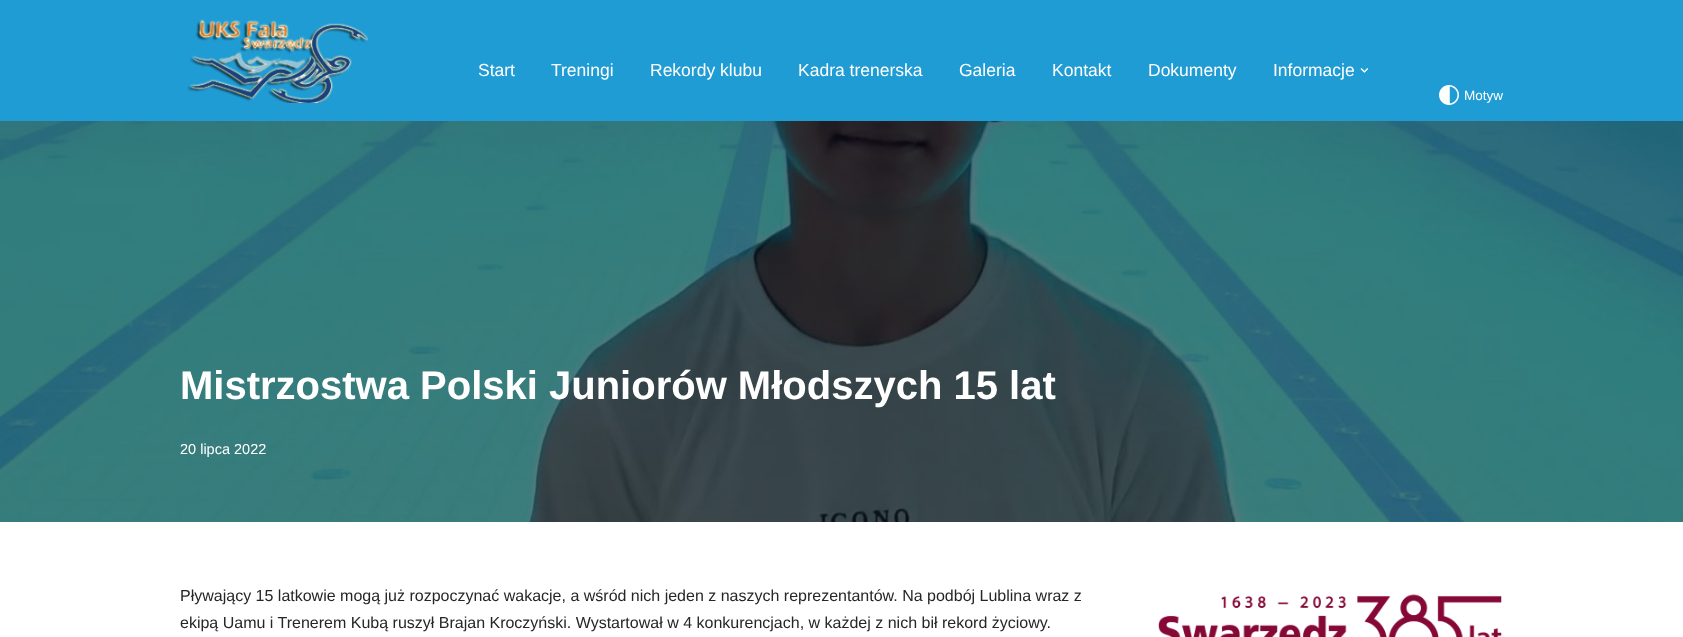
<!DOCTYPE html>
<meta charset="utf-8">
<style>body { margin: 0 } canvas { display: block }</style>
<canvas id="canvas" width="1683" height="637"></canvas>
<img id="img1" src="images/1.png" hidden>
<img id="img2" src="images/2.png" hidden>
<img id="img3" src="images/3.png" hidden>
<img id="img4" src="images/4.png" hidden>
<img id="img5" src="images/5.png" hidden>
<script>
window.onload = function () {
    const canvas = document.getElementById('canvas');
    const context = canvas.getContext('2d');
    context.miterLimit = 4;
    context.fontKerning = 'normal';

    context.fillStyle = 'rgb(255, 255, 255)';
    context.fillRect(0, 0, 1683, 637);
    context.fillStyle = 'rgb(32, 156, 212)';
    context.fillRect(0, 0, 1683, 121);
    context.drawImage(document.getElementById('img1'), 187, 19, 181, 84);
    context.drawImage(document.getElementById('img2'), 1360, 68, 9, 5);
    context.drawImage(document.getElementById('img3'), 1439, 85, 20, 20);
    context.drawImage(document.getElementById('img4'), 0, 121, 1683, 401);
    context.drawImage(document.getElementById('img5'), 1158, 594, 344, 43);
    context.font = '17.5px Liberation Sans';
    context.fillStyle = 'rgb(255, 255, 255)';
    context.fillText('Start', 478, 76);
    context.fillText('Treningi', 551, 76);
    context.fillText('Rekordy klubu', 650, 76);
    context.fillText('Kadra trenerska', 798, 76);
    context.fillText('Galeria', 959, 76);
    context.fillText('Kontakt', 1052, 76);
    context.fillText('Dokumenty', 1148, 76);
    context.fillText('Informacje', 1273, 76);
    context.font = '13.5px Liberation Sans';
    context.fillText('Motyw', 1464, 100);
    context.font = 'bold 40px Liberation Sans';
    context.fillText('Mistrzostwa Polski Juniorów Młodszych 15 lat', 180, 399);
    context.font = '14.5px Liberation Sans';
    context.fillText('20 lipca 2022', 180, 454);
    context.font = '16px Liberation Sans';
    context.fillStyle = 'rgb(39, 38, 38)';
    context.fillText('Pływający 15 latkowie mogą już rozpoczynać wakacje, a wśród nich jeden z naszych reprezentantów. Na podbój Lublina wraz z', 180, 601);
    context.fillText('ekipą Uamu i Trenerem Kubą ruszył Brajan Kroczyński. Wystartował w 4 konkurencjach, w każdej z nich bił rekord życiowy.', 180, 628);
};
</script>
